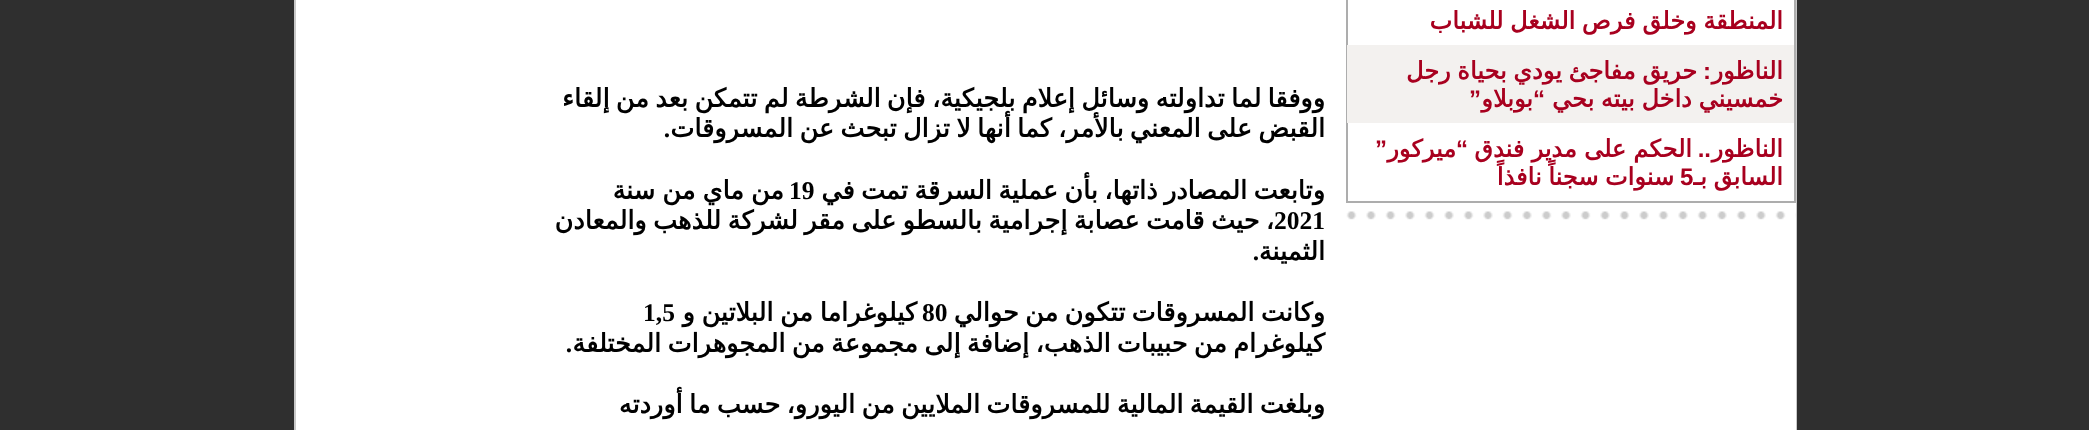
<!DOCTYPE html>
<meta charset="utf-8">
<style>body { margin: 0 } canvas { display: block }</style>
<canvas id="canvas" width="2089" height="430"></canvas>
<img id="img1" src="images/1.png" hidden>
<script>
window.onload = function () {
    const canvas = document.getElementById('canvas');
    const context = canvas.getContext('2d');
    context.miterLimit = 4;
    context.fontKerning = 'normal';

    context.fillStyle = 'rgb(47, 47, 47)';
    context.fillRect(0, 0, 2089, 430);
    context.strokeStyle = 'rgb(201, 201, 201)';
    context.lineWidth = 2;
    context.strokeRect(295, -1, 1501, 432);
    context.fillStyle = 'rgb(255, 255, 255)';
    context.fillRect(296, 0, 1500, 430);
    context.strokeStyle = 'rgb(173, 173, 173)';
    context.strokeRect(1347, -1, 448, 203);
    context.fillStyle = 'rgb(243, 241, 239)';
    context.fillRect(1347, 45, 447, 78);
    context.drawImage(document.getElementById('img1'), 1346, 211, 450, 9);
    context.wordSpacing = '-1px';
    context.direction = 'rtl';
    context.font = 'bold 24px DejaVu Sans';
    context.fillStyle = 'rgb(168, 0, 31)';
    context.fillText('المنطقة وخلق فرص الشغل للشباب', 1783, 29);
    context.wordSpacing = '0px';
    context.fillText('الناظور', 1783, 79);
    context.font = 'bold 24px Liberation Sans';
    context.fillText(':', 1711, 79);
    context.wordSpacing = '-1px';
    context.font = 'bold 24px DejaVu Sans';
    context.fillText('حريق مفاجئ يودي بحياة رجل', 1697, 79);
    context.fillText('خمسيني داخل بيته بحي', 1783, 107);
    context.wordSpacing = '0px';
    context.font = 'bold 24px Liberation Sans';
    context.fillText('“', 1545, 107);
    context.font = 'bold 24px DejaVu Sans';
    context.fillText('بوبلاو', 1533, 107);
    context.font = 'bold 24px Liberation Sans';
    context.fillText('”', 1481, 107);
    context.font = 'bold 24px DejaVu Sans';
    context.fillText('الناظور', 1783, 157);
    context.wordSpacing = '-0.5px';
    context.fillText('الحكم على مدير فندق', 1692, 157);
    context.wordSpacing = '0px';
    context.font = 'bold 24px Liberation Sans';
    context.fillText('“', 1468, 157);
    context.font = 'bold 24px DejaVu Sans';
    context.fillText('ميركور', 1456, 157);
    context.font = 'bold 24px Liberation Sans';
    context.fillText('”', 1387, 157);
    context.fillText('..', 1711, 157);
    context.direction = 'ltr';
    context.fillText('5', 1680, 185);
    context.wordSpacing = '-1px';
    context.direction = 'rtl';
    context.font = 'bold 24px DejaVu Sans';
    context.fillText('السابق بـ', 1783, 185);
    context.fillText('سنوات سجناً نافذاً', 1674, 185);
    context.wordSpacing = '-1.75px';
    context.font = 'bold 25.5px DejaVu Sans';
    context.fillStyle = 'rgb(0, 0, 0)';
    context.fillText('ووفقا لما تداولته وسائل إعلام بلجيكية، فإن الشرطة لم تتمكن بعد من إلقاء', 1325, 107);
    context.fillText('القبض على المعني بالأمر، كما أنها لا تزال تبحث عن المسروقات', 1325, 137);
    context.wordSpacing = '0px';
    context.font = 'bold 25.5px Liberation Serif';
    context.fillText('.', 670, 137);
    context.wordSpacing = '-1.75px';
    context.font = 'bold 25.5px DejaVu Sans';
    context.fillText('وتابعت المصادر ذاتها، بأن عملية السرقة تمت في', 1325, 199);
    context.wordSpacing = '0px';
    context.direction = 'ltr';
    context.font = 'bold 25.5px Liberation Serif';
    context.fillText('19', 789, 199);
    context.wordSpacing = '-1px';
    context.direction = 'rtl';
    context.font = 'bold 25.5px DejaVu Sans';
    context.fillText('من ماي من سنة', 784, 199);
    context.wordSpacing = '0px';
    context.direction = 'ltr';
    context.font = 'bold 25.5px Liberation Serif';
    context.fillText('2021', 1274, 229);
    context.wordSpacing = '-1.75px';
    context.direction = 'rtl';
    context.font = 'bold 25.5px DejaVu Sans';
    context.fillText('، حيث قامت عصابة إجرامية بالسطو على مقر لشركة للذهب والمعادن', 1274, 229);
    context.wordSpacing = '0px';
    context.fillText('الثمينة', 1325, 260);
    context.font = 'bold 25.5px Liberation Serif';
    context.fillText('.', 1259, 260);
    context.wordSpacing = '-1.75px';
    context.font = 'bold 25.5px DejaVu Sans';
    context.fillText('وكانت المسروقات تتكون من حوالي', 1325, 321);
    context.wordSpacing = '0px';
    context.direction = 'ltr';
    context.font = 'bold 25.5px Liberation Serif';
    context.fillText('80', 922, 321);
    context.wordSpacing = '-1.5px';
    context.direction = 'rtl';
    context.font = 'bold 25.5px DejaVu Sans';
    context.fillText('كيلوغراما من البلاتين و', 917, 321);
    context.wordSpacing = '0px';
    context.direction = 'ltr';
    context.font = 'bold 25.5px Liberation Serif';
    context.fillText('1,5', 643, 321);
    context.wordSpacing = '-1.75px';
    context.direction = 'rtl';
    context.font = 'bold 25.5px DejaVu Sans';
    context.fillText('كيلوغرام من حبيبات الذهب، إضافة إلى مجموعة من المجوهرات المختلفة', 1325, 352);
    context.wordSpacing = '0px';
    context.font = 'bold 25.5px Liberation Serif';
    context.fillText('.', 572, 352);
    context.wordSpacing = '-1.75px';
    context.font = 'bold 25.5px DejaVu Sans';
    context.fillText('وبلغت القيمة المالية للمسروقات الملايين من اليورو، حسب ما أوردته', 1325, 413);
};
</script>
